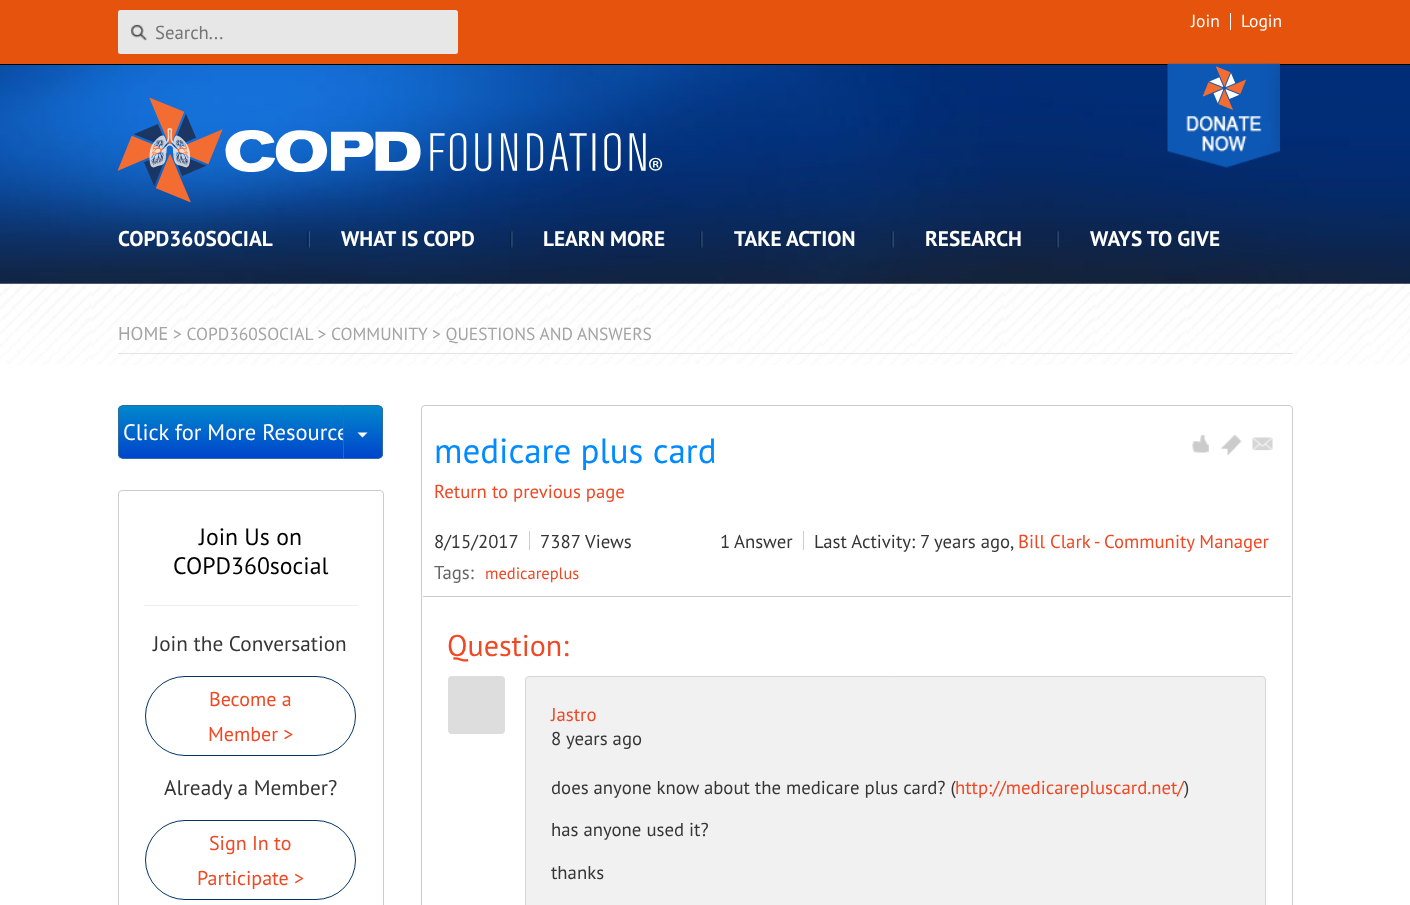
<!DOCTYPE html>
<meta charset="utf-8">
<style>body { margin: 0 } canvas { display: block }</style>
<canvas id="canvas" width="1410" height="905"></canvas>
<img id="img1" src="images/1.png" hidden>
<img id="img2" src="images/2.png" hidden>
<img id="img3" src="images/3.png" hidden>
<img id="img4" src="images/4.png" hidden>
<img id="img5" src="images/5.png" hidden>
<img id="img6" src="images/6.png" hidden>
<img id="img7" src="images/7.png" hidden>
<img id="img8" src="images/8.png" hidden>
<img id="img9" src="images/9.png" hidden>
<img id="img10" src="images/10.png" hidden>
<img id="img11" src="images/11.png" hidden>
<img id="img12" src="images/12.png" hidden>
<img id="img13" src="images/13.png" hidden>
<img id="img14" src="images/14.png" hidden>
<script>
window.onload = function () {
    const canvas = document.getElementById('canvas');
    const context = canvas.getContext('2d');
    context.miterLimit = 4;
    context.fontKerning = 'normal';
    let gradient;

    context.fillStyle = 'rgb(255, 255, 255)';
    context.fillRect(0, 0, 1410, 905);
    context.fillStyle = 'rgb(230, 83, 12)';
    context.fillRect(0, 0, 1410, 64);
    context.fillStyle = 'rgb(0, 0, 0)';
    context.fillRect(0, 64, 1410, 1);
    context.fillStyle = 'rgb(255, 255, 255)';
    context.fillRect(1230, 13, 1, 17);
    context.fillStyle = 'rgb(231, 231, 231)';
    context.beginPath();
    context.roundRect(118, 10, 340, 44, 2.5);
    context.fill();
    context.drawImage(document.getElementById('img1'), 131, 11, 327, 30);
    context.drawImage(document.getElementById('img2'), 0, 65, 1410, 219);
    context.drawImage(document.getElementById('img3'), 118, 98, 545, 105);
    context.drawImage(document.getElementById('img4'), 1167, 63, 113, 105);
    context.drawImage(document.getElementById('img5'), 1203, 66, 43, 44);
    context.drawImage(document.getElementById('img6'), 307, 231, 3, 17);
    context.drawImage(document.getElementById('img7'), 510, 231, 3, 17);
    context.drawImage(document.getElementById('img8'), 700, 231, 3, 17);
    context.drawImage(document.getElementById('img9'), 891, 231, 3, 17);
    context.drawImage(document.getElementById('img10'), 1056, 231, 3, 17);
    context.drawImage(document.getElementById('img11'), 0, 284, 1410, 81);
    context.fillStyle = 'rgb(227, 227, 227)';
    context.fillRect(118, 353, 1175, 1);
    context.save();
    context.beginPath();
    context.roundRect(118, 405, 226, 54, [5, 0, 0, 5]);
    context.clip();
    gradient = context.createLinearGradient(231, 406, 231, 458);
    gradient.addColorStop(0, 'rgb(0, 136, 204)');
    gradient.addColorStop(1, 'rgb(0, 68, 204)');
    context.fillStyle = gradient;
    context.fillRect(118, 406, 225, 52);
    context.restore();
    context.beginPath();
    context.roundRect(118.5, 405.5, 225, 53, [4.5, 0, 0, 4.5]);
    context.strokeStyle = 'rgb(46, 109, 164)';
    context.stroke();
    context.beginPath();
    context.roundRect(118.5, 490.5, 265, 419, 3.5);
    context.strokeStyle = 'rgb(204, 204, 204)';
    context.stroke();
    context.fillStyle = 'rgb(238, 238, 238)';
    context.fillRect(144, 605, 214, 1);
    context.beginPath();
    context.roundRect(145.5, 676.5, 210, 79, 39.5);
    context.strokeStyle = 'rgb(0, 51, 102)';
    context.stroke();
    context.beginPath();
    context.roundRect(145.5, 820.5, 210, 79, 39.5);
    context.stroke();
    context.beginPath();
    context.roundRect(421.5, 405.5, 871, 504, 3.5);
    context.strokeStyle = 'rgb(204, 204, 204)';
    context.stroke();
    context.drawImage(document.getElementById('img12'), 1192, 435, 17, 18);
    context.drawImage(document.getElementById('img13'), 1221, 435, 21, 21);
    context.drawImage(document.getElementById('img14'), 1252, 437, 21, 14);
    context.fillStyle = 'rgb(204, 204, 204)';
    context.fillRect(423, 596, 868, 1);
    context.fillRect(529, 531, 1, 19);
    context.fillRect(803, 531, 1, 19);
    context.fillStyle = 'rgb(221, 221, 221)';
    context.beginPath();
    context.roundRect(450, 678, 53, 54, 2);
    context.fill();
    context.strokeStyle = 'rgb(221, 221, 221)';
    context.lineWidth = 4;
    context.stroke();
    context.fillStyle = 'rgb(241, 241, 241)';
    context.beginPath();
    context.roundRect(525.5, 676.5, 740, 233, 3.5);
    context.fill();
    context.strokeStyle = 'rgb(213, 213, 213)';
    context.lineWidth = 1;
    context.stroke();
    context.font = '17.5px PT Sans';
    context.fillStyle = 'rgb(255, 255, 255)';
    context.fillText('Join', 1191, 27);
    context.fillText('Login', 1241, 27);
    context.font = '18.75px PT Sans';
    context.fillStyle = 'rgb(117, 117, 117)';
    context.fillText('Search...', 155, 39);
    context.font = 'bold 21.25px PT Sans';
    context.fillStyle = 'rgb(255, 255, 255)';
    context.fillText('COPD360SOCIAL', 118, 246);
    context.fillText('WHAT IS COPD', 341, 246);
    context.fillText('LEARN MORE', 543, 246);
    context.fillText('TAKE ACTION', 734, 246);
    context.fillText('RESEARCH', 925, 246);
    context.fillText('WAYS TO GIVE', 1090, 246);
    context.font = '18.75px PT Sans';
    context.fillStyle = 'rgb(164, 164, 164)';
    context.fillText('HOME', 118, 340);
    context.font = '17.5px PT Sans';
    context.fillText('> COPD360SOCIAL > COMMUNITY > QUESTIONS AND ANSWERS', 173, 340);
    context.font = '22.5px PT Sans';
    context.fillStyle = 'rgb(255, 255, 255)';
    context.fillText('Click for More Resource', 123, 440);
    context.save();
    context.beginPath();
    context.roundRect(343, 405, 40, 54, [0, 5, 5, 0]);
    context.clip();
    gradient = context.createLinearGradient(363, 406, 363, 458);
    gradient.addColorStop(0, 'rgb(0, 136, 204)');
    gradient.addColorStop(1, 'rgb(0, 68, 204)');
    context.fillStyle = gradient;
    context.fillRect(344, 406, 39, 52);
    context.restore();
    context.beginPath();
    context.roundRect(343.5, 405.5, 39, 53, [0, 4.5, 4.5, 0]);
    context.strokeStyle = 'rgb(46, 109, 164)';
    context.stroke();
    context.beginPath();
    context.moveTo(357.5, 432.5);
    context.lineTo(367.5, 432.5);
    context.lineTo(362.5, 437.5);
    context.closePath();
    context.fill();
    context.font = '23.75px PT Sans';
    context.fillStyle = 'rgb(0, 0, 0)';
    context.fillText('Join Us on', 199, 545);
    context.fillText('COPD360social', 173, 574);
    context.font = '21.25px PT Sans';
    context.fillStyle = 'rgb(53, 53, 54)';
    context.fillText('Join the Conversation', 153, 651);
    context.font = '20px PT Sans';
    context.fillStyle = 'rgb(238, 73, 36)';
    context.fillText('Become a', 209, 706);
    context.fillText('Member >', 208, 741);
    context.font = '21.25px PT Sans';
    context.fillStyle = 'rgb(53, 53, 54)';
    context.fillText('Already a Member?', 164, 795);
    context.font = '20px PT Sans';
    context.fillStyle = 'rgb(238, 73, 36)';
    context.fillText('Sign In to', 209, 850);
    context.fillText('Participate >', 197, 885);
    context.font = '35px PT Sans';
    context.fillStyle = 'rgb(2, 139, 255)';
    context.fillText('medicare plus card', 434, 463);
    context.font = '18.75px PT Sans';
    context.fillStyle = 'rgb(238, 73, 36)';
    context.fillText('Return to previous page', 434, 498);
    context.fillStyle = 'rgb(53, 53, 54)';
    context.fillText('8/15/2017', 434, 548);
    context.fillText('7387', 540, 548);
    context.fillText('Views', 585, 548);
    context.fillText('1', 720, 548);
    context.fillText('Answer', 734, 548);
    context.fillText('Last Activity: 7 years ago,', 814, 548);
    context.fillStyle = 'rgb(238, 73, 36)';
    context.fillText('Bill Clark - Community Manager', 1018, 548);
    context.fillStyle = 'rgb(102, 102, 102)';
    context.fillText('Tags:', 434, 579);
    context.font = '16.5px PT Sans';
    context.fillStyle = 'rgb(238, 73, 36)';
    context.fillText('medicareplus', 485, 579);
    context.font = '30px PT Sans';
    context.fillText('Question:', 447, 656);
    context.font = '18.75px PT Sans';
    context.fillText('Jastro', 551, 721);
    context.fillStyle = 'rgb(53, 53, 54)';
    context.fillText('8 years ago', 551, 745);
    context.fillText('does anyone know about the medicare plus card? (', 551, 794);
    context.fillStyle = 'rgb(238, 73, 36)';
    context.fillText('http://medicarepluscard.net/', 955, 794);
    context.fillStyle = 'rgb(53, 53, 54)';
    context.fillText(')', 1184, 794);
    context.fillText('has anyone used it?', 551, 836);
    context.fillText('thanks', 551, 879);
};
</script>
